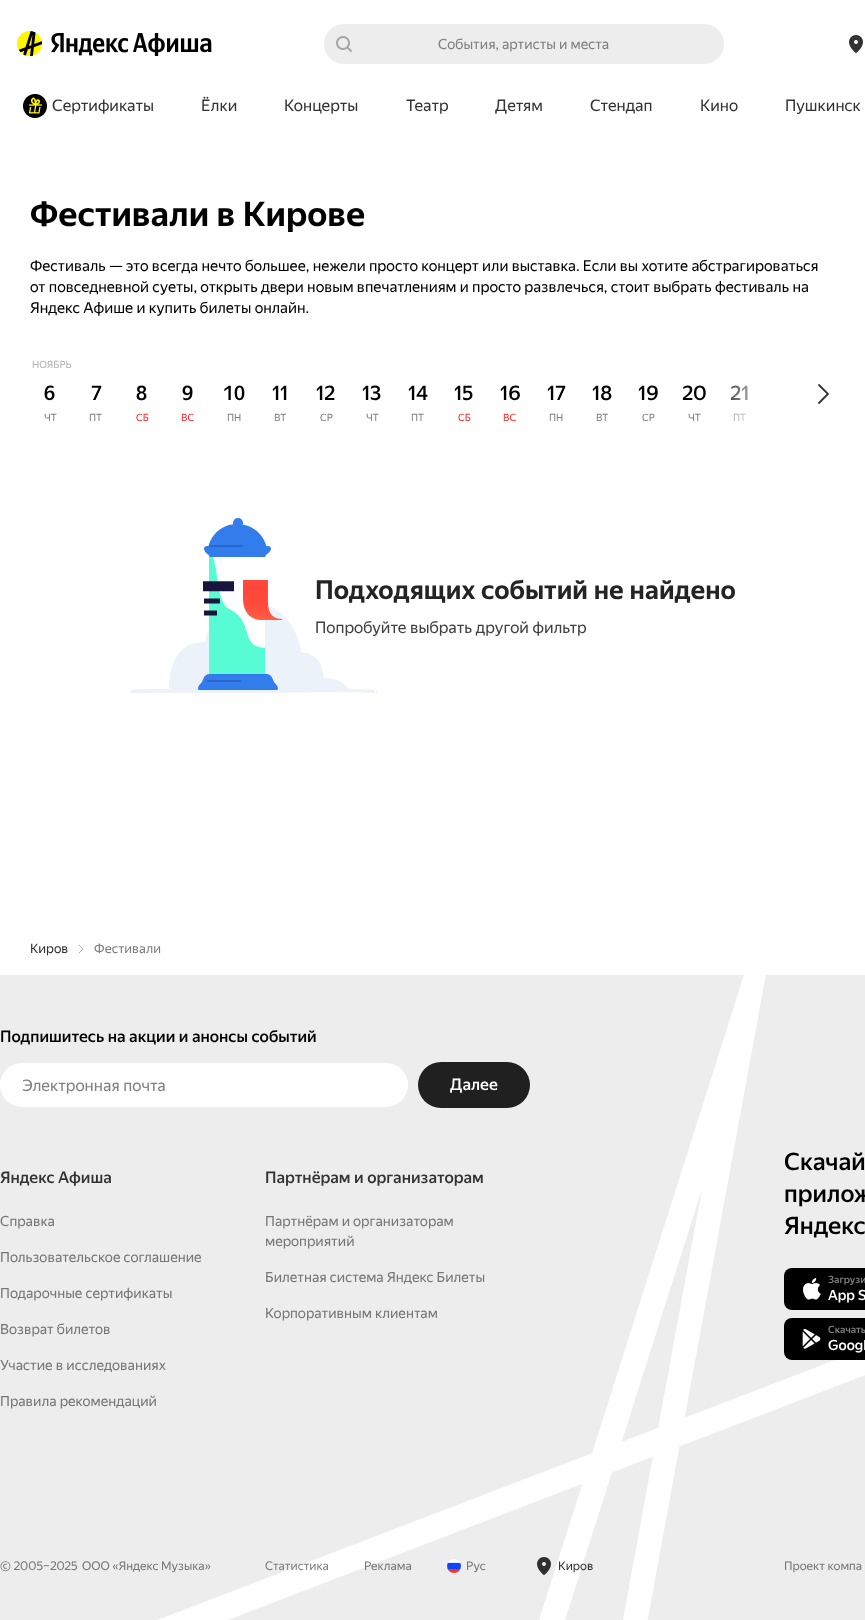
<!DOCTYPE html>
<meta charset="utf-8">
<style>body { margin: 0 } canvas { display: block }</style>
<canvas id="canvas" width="865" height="1620"></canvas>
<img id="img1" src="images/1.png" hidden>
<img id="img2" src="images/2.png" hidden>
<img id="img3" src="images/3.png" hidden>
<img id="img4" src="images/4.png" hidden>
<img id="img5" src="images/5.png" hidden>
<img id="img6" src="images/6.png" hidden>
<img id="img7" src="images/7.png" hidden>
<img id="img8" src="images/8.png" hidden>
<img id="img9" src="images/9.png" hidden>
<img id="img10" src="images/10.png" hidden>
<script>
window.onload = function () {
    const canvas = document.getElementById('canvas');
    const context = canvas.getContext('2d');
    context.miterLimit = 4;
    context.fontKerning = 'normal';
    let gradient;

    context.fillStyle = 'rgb(255, 255, 255)';
    context.fillRect(0, 0, 865, 1620);
    context.drawImage(document.getElementById('img1'), 17, 31, 26, 26);
    context.drawImage(document.getElementById('img2'), 51, 33, 161, 23);
    context.drawImage(document.getElementById('img3'), 336, 36, 16, 16);
    context.fillStyle = 'rgba(0, 0, 0, 0.07)';
    context.beginPath();
    context.roundRect(324, 24, 400, 40, 20);
    context.fill();
    context.drawImage(document.getElementById('img4'), 849, 35, 14, 18);
    context.drawImage(document.getElementById('img5'), 23, 94, 24, 24);
    context.beginPath();
    context.moveTo(819, 403);
    context.lineTo(828, 394);
    context.lineTo(819, 385);
    context.strokeStyle = 'rgb(51, 51, 51)';
    context.lineWidth = 1.8;
    context.lineCap = 'round';
    context.stroke();
    context.drawImage(document.getElementById('img6'), 130, 518, 248, 175);
    context.beginPath();
    context.moveTo(79, 945);
    context.lineTo(83, 949);
    context.lineTo(79, 953);
    context.strokeStyle = 'rgb(179, 179, 179)';
    context.lineWidth = 1;
    context.lineJoin = 'round';
    context.stroke();
    context.fillStyle = 'rgb(237, 237, 237)';
    context.fillRect(0, 975, 865, 645);
    context.fillStyle = 'rgb(255, 255, 255)';
    context.beginPath();
    context.roundRect(1, 1064, 406, 42, 21);
    context.fill();
    context.strokeStyle = 'rgb(255, 255, 255)';
    context.lineWidth = 2;
    context.lineJoin = 'miter';
    context.stroke();
    context.fillStyle = 'rgb(32, 32, 32)';
    context.beginPath();
    context.roundRect(418, 1062, 112, 46, 23);
    context.fill();
    context.fillStyle = 'rgb(255, 255, 255)';
    context.beginPath();
    context.moveTo(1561, 1108);
    context.lineTo(108, 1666);
    context.lineTo(100, 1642);
    context.lineTo(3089, 495);
    context.lineTo(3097, 519);
    context.closePath();
    context.fill('evenodd');
    context.drawImage(document.getElementById('img7'), 447, 1559, 14, 14);
    context.save();
    context.beginPath();
    context.rect(519, 975, 247, 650);
    context.clip();
    context.beginPath();
    context.moveTo(600, 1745);
    context.lineTo(735, 1009);
    context.lineTo(744, 974);
    context.lineTo(766, 974);
    context.lineTo(624, 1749);
    context.closePath();
    context.fill('evenodd');
    context.restore();
    context.beginPath();
    context.moveTo(493, 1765);
    context.lineTo(743, 978);
    context.lineTo(764, 978);
    context.lineTo(757, 1016);
    context.lineTo(517, 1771);
    context.closePath();
    context.fill('evenodd');
    context.drawImage(document.getElementById('img8'), 537, 1557, 14, 18);
    context.fillStyle = 'rgb(0, 0, 0)';
    context.beginPath();
    context.roundRect(784, 1268, 81, 42, [8, 0, 0, 8]);
    context.fill();
    context.drawImage(document.getElementById('img9'), 803, 1278, 18, 22);
    context.beginPath();
    context.roundRect(784, 1318, 81, 42, [8, 0, 0, 8]);
    context.fill();
    context.drawImage(document.getElementById('img10'), 802, 1329, 19, 20);
    context.font = '14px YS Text';
    context.fillStyle = 'rgb(128, 128, 128)';
    context.fillText('События, артисты и места', 438, 49);
    context.font = '16px YS Text';
    context.fillStyle = 'rgb(51, 51, 51)';
    context.fillText('Сертификаты', 52, 111);
    context.fillText('Ёлки', 201, 111);
    context.fillText('Концерты', 284, 111);
    context.fillText('Театр', 406, 111);
    context.fillText('Детям', 495, 111);
    context.fillText('Стендап', 590, 111);
    context.fillText('Кино', 700, 111);
    context.fillText('Пушкинск', 785, 111);
    context.font = 'bold 34px YS Text';
    context.fillStyle = 'rgb(0, 0, 0)';
    context.fillText('Фестивали в Кирове', 30, 226);
    context.font = '15px YS Text';
    context.fillText('Фестиваль — это всегда нечто большее, нежели просто концерт или выставка. Если вы хотите абстрагироваться', 30, 271);
    context.fillText('от повседневной суеты, открыть двери новым впечатлениям и просто развлечься, стоит выбрать фестиваль на', 30, 292);
    context.fillText('Яндекс Афише и купить билеты онлайн.', 30, 313);
    context.font = '10px YS Text';
    context.fillStyle = 'rgb(179, 179, 179)';
    context.fillText('НОЯБРЬ', 32, 368);
    context.font = '500 20px YS Text';
    context.fillStyle = 'rgb(0, 0, 0)';
    context.fillText('6', 44, 400);
    context.font = '10px YS Text';
    context.fillStyle = 'rgb(128, 128, 128)';
    context.fillText('ЧТ', 44, 421);
    context.font = '500 20px YS Text';
    context.fillStyle = 'rgb(0, 0, 0)';
    context.fillText('7', 91, 400);
    context.font = '10px YS Text';
    context.fillStyle = 'rgb(128, 128, 128)';
    context.fillText('ПТ', 89, 421);
    context.font = '500 20px YS Text';
    context.fillStyle = 'rgb(0, 0, 0)';
    context.fillText('8', 136, 400);
    context.font = '10px YS Text';
    context.fillStyle = 'rgb(247, 47, 47)';
    context.fillText('СБ', 136, 421);
    context.font = '500 20px YS Text';
    context.fillStyle = 'rgb(0, 0, 0)';
    context.fillText('9', 182, 400);
    context.font = '10px YS Text';
    context.fillStyle = 'rgb(247, 47, 47)';
    context.fillText('ВС', 181, 421);
    context.font = '500 20px YS Text';
    context.fillStyle = 'rgb(0, 0, 0)';
    context.fillText('10', 223, 400);
    context.font = '10px YS Text';
    context.fillStyle = 'rgb(128, 128, 128)';
    context.fillText('ПН', 227, 421);
    context.font = '500 20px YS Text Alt';
    context.fillStyle = 'rgb(0, 0, 0)';
    context.fillText('11', 272, 400);
    context.font = '10px YS Text';
    context.fillStyle = 'rgb(128, 128, 128)';
    context.fillText('ВТ', 274, 421);
    context.font = '500 20px YS Text Alt';
    context.fillStyle = 'rgb(0, 0, 0)';
    context.fillText('12', 316, 400);
    context.font = '10px YS Text';
    context.fillStyle = 'rgb(128, 128, 128)';
    context.fillText('СР', 320, 421);
    context.font = '500 20px YS Text Alt';
    context.fillStyle = 'rgb(0, 0, 0)';
    context.fillText('13', 362, 400);
    context.font = '10px YS Text';
    context.fillStyle = 'rgb(128, 128, 128)';
    context.fillText('ЧТ', 366, 421);
    context.font = '500 20px YS Text Alt';
    context.fillStyle = 'rgb(0, 0, 0)';
    context.fillText('14', 408, 400);
    context.font = '10px YS Text';
    context.fillStyle = 'rgb(128, 128, 128)';
    context.fillText('ПТ', 411, 421);
    context.font = '500 20px YS Text Alt';
    context.fillStyle = 'rgb(0, 0, 0)';
    context.fillText('15', 454, 400);
    context.font = '10px YS Text';
    context.fillStyle = 'rgb(247, 47, 47)';
    context.fillText('СБ', 458, 421);
    context.font = '500 20px YS Text Alt';
    context.fillStyle = 'rgb(0, 0, 0)';
    context.fillText('16', 500, 400);
    context.font = '10px YS Text';
    context.fillStyle = 'rgb(247, 47, 47)';
    context.fillText('ВС', 503, 421);
    context.font = '500 20px YS Text Alt';
    context.fillStyle = 'rgb(0, 0, 0)';
    context.fillText('17', 547, 400);
    context.font = '10px YS Text';
    context.fillStyle = 'rgb(128, 128, 128)';
    context.fillText('ПН', 549, 421);
    context.font = '500 20px YS Text Alt';
    context.fillStyle = 'rgb(0, 0, 0)';
    context.fillText('18', 592, 400);
    context.font = '10px YS Text';
    context.fillStyle = 'rgb(128, 128, 128)';
    context.fillText('ВТ', 596, 421);
    context.font = '500 20px YS Text Alt';
    context.fillStyle = 'rgb(0, 0, 0)';
    context.fillText('19', 638, 400);
    context.font = '10px YS Text';
    context.fillStyle = 'rgb(128, 128, 128)';
    context.fillText('СР', 642, 421);
    context.font = '500 20px YS Text Alt';
    context.fillStyle = 'rgb(0, 0, 0)';
    context.fillText('20', 682, 400);
    context.font = '10px YS Text';
    context.fillStyle = 'rgb(128, 128, 128)';
    context.fillText('ЧТ', 688, 421);
    context.font = '500 20px YS Text Alt';
    context.fillStyle = 'rgb(0, 0, 0)';
    context.fillText('21', 730, 400);
    context.font = '10px YS Text';
    context.fillStyle = 'rgb(128, 128, 128)';
    context.fillText('ПТ', 733, 421);
    gradient = context.createLinearGradient(811, 406, 711, 406);
    gradient.addColorStop(0, 'rgb(255, 255, 255)');
    gradient.addColorStop(0.39, 'rgb(255, 255, 255)');
    gradient.addColorStop(1, 'rgba(255, 255, 255, 0)');
    context.fillStyle = gradient;
    context.fillRect(731, 385, 17, 36);
    context.font = 'bold 26px YS Text';
    context.fillStyle = 'rgb(36, 36, 36)';
    context.fillText('Подходящих событий не найдено', 315, 599);
    context.font = '16px YS Text';
    context.fillStyle = 'rgb(65, 65, 65)';
    context.fillText('Попробуйте выбрать другой фильтр', 315, 633);
    context.font = '13px YS Text';
    context.fillStyle = 'rgb(51, 51, 51)';
    context.fillText('Киров', 30, 953);
    context.fillStyle = 'rgb(128, 128, 128)';
    context.fillText('Фестивали', 94, 953);
    context.font = '500 16px YS Text';
    context.fillStyle = 'rgb(0, 0, 0)';
    context.fillText('Подпишитесь на акции и анонсы событий', 0, 1042);
    context.font = '16px YS Text';
    context.fillStyle = 'rgb(128, 128, 128)';
    context.fillText('Электронная почта', 22, 1091);
    context.font = '500 16px YS Text';
    context.fillStyle = 'rgb(255, 255, 255)';
    context.fillText('Далее', 450, 1090);
    context.fillStyle = 'rgb(51, 51, 51)';
    context.fillText('Яндекс Афиша', 0, 1183);
    context.font = '14px YS Text';
    context.fillStyle = 'rgb(119, 119, 119)';
    context.fillText('Справка', 0, 1226);
    context.fillText('Пользовательское соглашение', 0, 1262);
    context.fillText('Подарочные сертификаты', 0, 1298);
    context.fillText('Возврат билетов', 0, 1334);
    context.fillText('Участие в исследованиях', 0, 1370);
    context.fillText('Правила рекомендаций', 0, 1406);
    context.font = '500 16px YS Text';
    context.fillStyle = 'rgb(51, 51, 51)';
    context.fillText('Партнёрам и организаторам', 265, 1183);
    context.font = '14px YS Text';
    context.fillStyle = 'rgb(119, 119, 119)';
    context.fillText('Партнёрам и организаторам', 265, 1226);
    context.fillText('мероприятий', 265, 1246);
    context.fillText('Билетная система Яндекс Билеты', 265, 1282);
    context.fillText('Корпоративным клиентам', 265, 1318);
    context.font = '12px YS Text Alt';
    context.fillText('© 2005–2025', 0, 1570);
    context.font = '12px YS Text';
    context.fillText('ООО «Яндекс Музыка»', 82, 1570);
    context.fillStyle = 'rgb(128, 128, 128)';
    context.fillText('Статистика', 265, 1570);
    context.fillStyle = 'rgb(119, 119, 119)';
    context.fillText('Реклама', 364, 1570);
    context.fillText('Рус', 466, 1570);
    context.fillStyle = 'rgb(51, 51, 51)';
    context.fillText('Киров', 558, 1570);
    context.font = '500 24px YS Text';
    context.fillStyle = 'rgb(0, 0, 0)';
    context.fillText('Скачай', 784, 1170);
    context.fillText('прилож', 784, 1202);
    context.fillText('Яндекс', 784, 1234);
    context.font = '500 10px YS Text';
    context.fillStyle = 'rgb(128, 128, 128)';
    context.fillText('Загрузи', 828, 1283);
    context.font = '500 14px YS Text';
    context.fillStyle = 'rgb(255, 255, 255)';
    context.fillText('App S', 828, 1300);
    context.font = '500 10px YS Text';
    context.fillStyle = 'rgb(128, 128, 128)';
    context.fillText('Скачать', 828, 1333);
    context.font = '500 14px YS Text';
    context.fillStyle = 'rgb(255, 255, 255)';
    context.fillText('Googl', 828, 1350);
    context.font = '12px YS Text';
    context.fillStyle = 'rgb(119, 119, 119)';
    context.fillText('Проект компа', 784, 1570);
};
</script>
